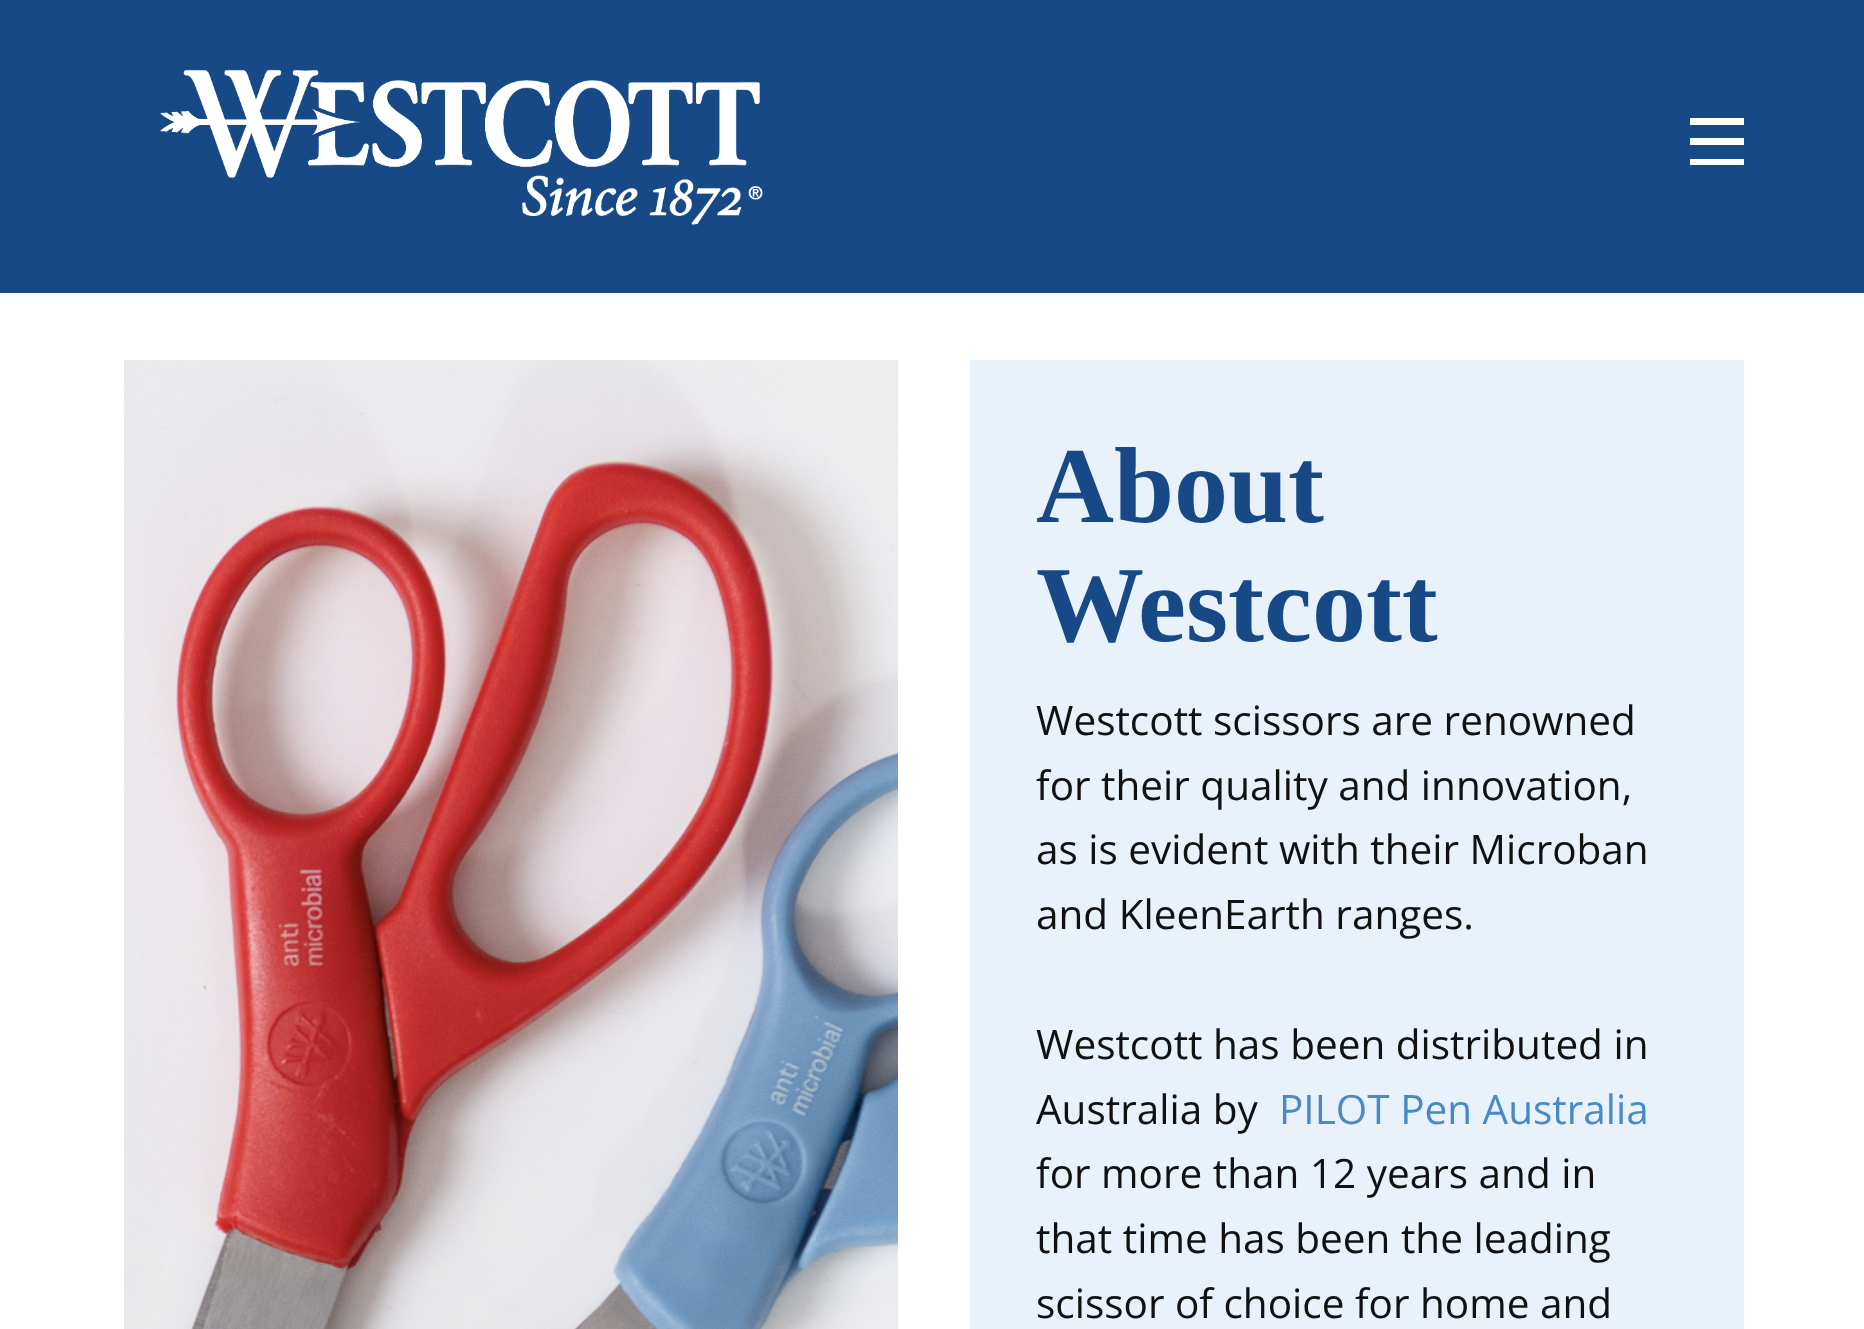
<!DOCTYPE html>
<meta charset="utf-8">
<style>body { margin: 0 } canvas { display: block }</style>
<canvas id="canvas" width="1864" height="1329"></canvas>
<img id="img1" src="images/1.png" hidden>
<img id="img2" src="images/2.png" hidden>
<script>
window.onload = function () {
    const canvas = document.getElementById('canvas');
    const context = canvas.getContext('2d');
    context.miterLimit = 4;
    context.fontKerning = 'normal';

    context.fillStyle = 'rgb(255, 255, 255)';
    context.fillRect(0, 0, 1864, 1329);
    context.fillStyle = 'rgb(22, 73, 134)';
    context.fillRect(0, 0, 1864, 293);
    context.drawImage(document.getElementById('img1'), 160, 69, 603, 156);
    context.fillStyle = 'rgb(255, 255, 255)';
    context.fillRect(1690, 118, 54, 7);
    context.fillRect(1690, 138, 54, 7);
    context.fillRect(1690, 159, 54, 6);
    context.drawImage(document.getElementById('img2'), 124, 360, 774, 969);
    context.fillStyle = 'rgb(233, 242, 250)';
    context.fillRect(970, 360, 774, 969);
    context.font = 'bold 108px Liberation Serif';
    context.fillStyle = 'rgb(22, 73, 134)';
    context.fillText('About', 1036, 522);
    context.fillText('Westcott', 1036, 641);
    context.font = '40.5px Open Sans';
    context.fillStyle = 'rgb(17, 17, 17)';
    context.fillText('Westcott scissors are renowned', 1036, 735);
    context.fillText('for their quality and innovation,', 1036, 800);
    context.fillText('as is evident with their Microban', 1036, 864);
    context.fillText('and KleenEarth ranges.', 1036, 929);
    context.fillText('Westcott has been distributed in', 1036, 1059);
    context.fillText('Australia by', 1036, 1124);
    context.fillStyle = 'rgb(71, 138, 201)';
    context.fillText('PILOT Pen Australia', 1279, 1124);
    context.fillStyle = 'rgb(17, 17, 17)';
    context.fillText('for more than 12 years and in', 1036, 1188);
    context.fillText('that time has been the leading', 1036, 1253);
    context.fillText('scissor of choice for home and', 1036, 1318);
};
</script>
